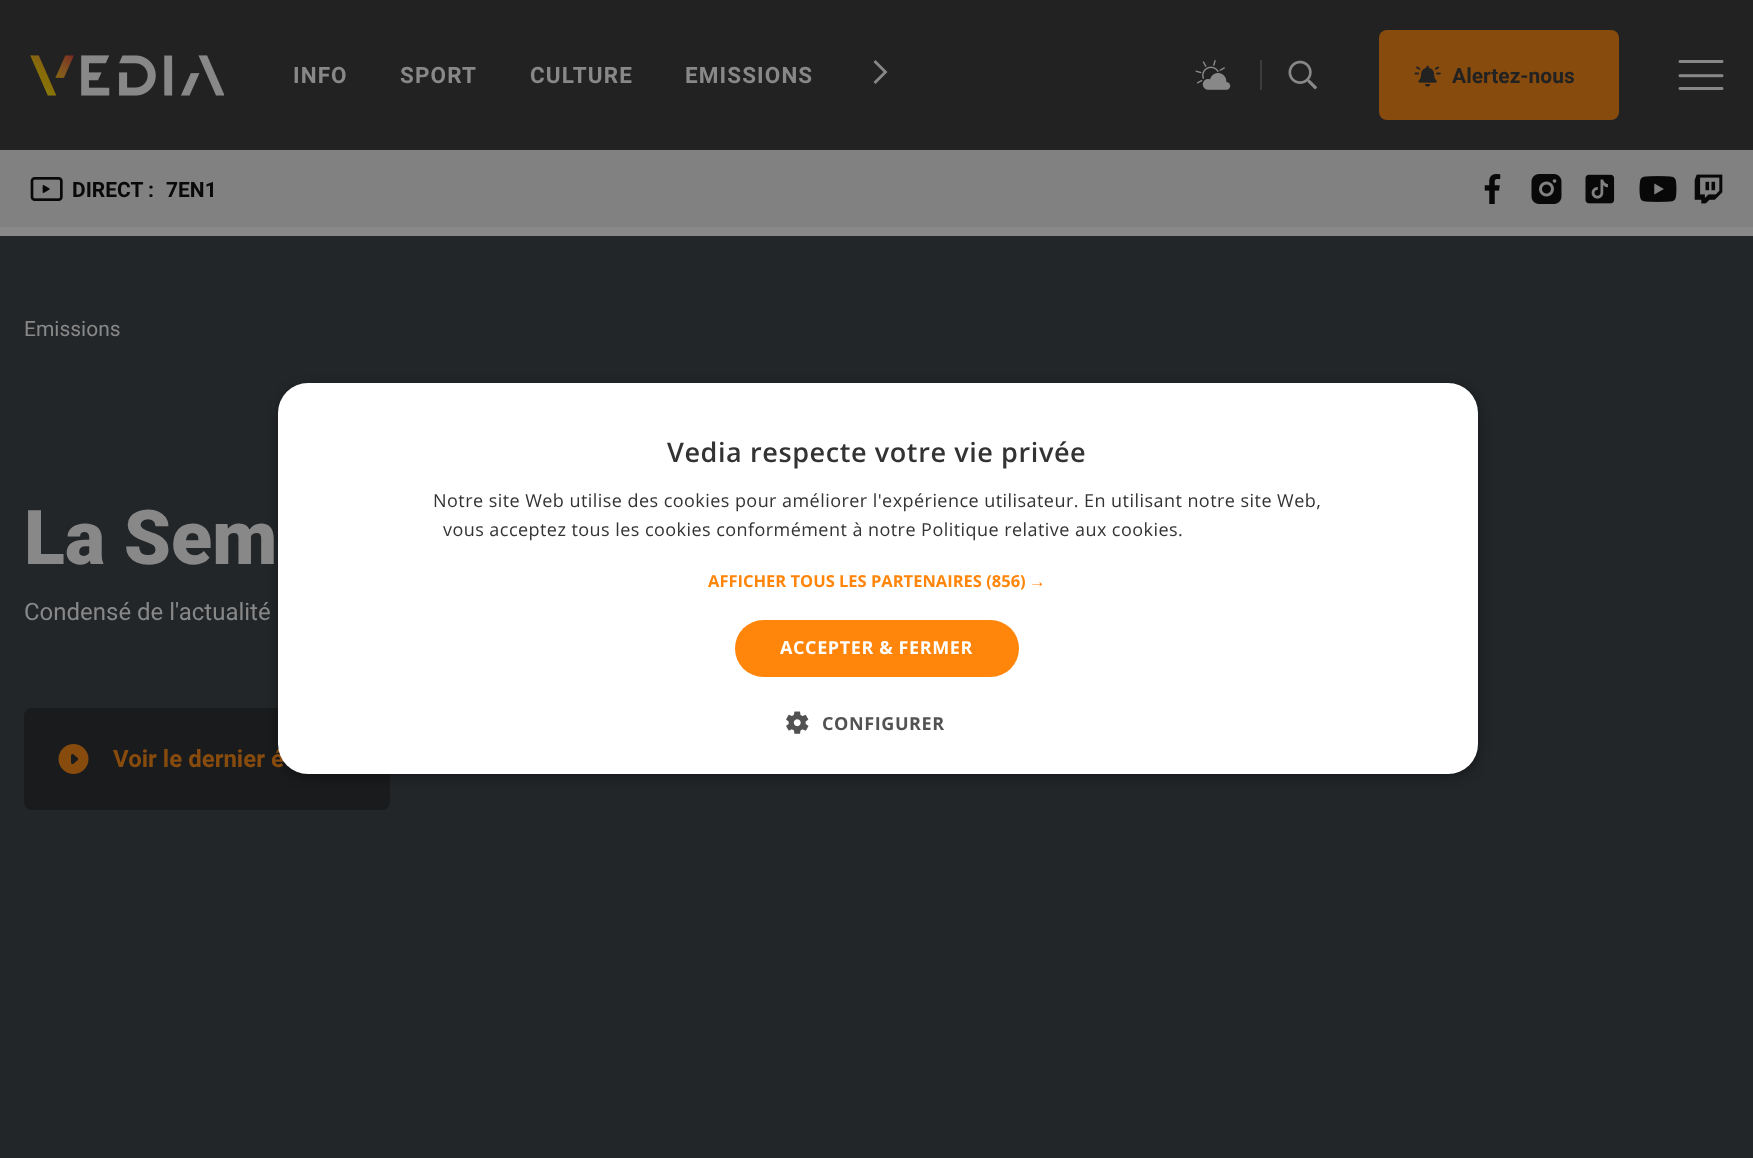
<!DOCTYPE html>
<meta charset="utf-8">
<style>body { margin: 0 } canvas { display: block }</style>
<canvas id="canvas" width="1753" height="1158"></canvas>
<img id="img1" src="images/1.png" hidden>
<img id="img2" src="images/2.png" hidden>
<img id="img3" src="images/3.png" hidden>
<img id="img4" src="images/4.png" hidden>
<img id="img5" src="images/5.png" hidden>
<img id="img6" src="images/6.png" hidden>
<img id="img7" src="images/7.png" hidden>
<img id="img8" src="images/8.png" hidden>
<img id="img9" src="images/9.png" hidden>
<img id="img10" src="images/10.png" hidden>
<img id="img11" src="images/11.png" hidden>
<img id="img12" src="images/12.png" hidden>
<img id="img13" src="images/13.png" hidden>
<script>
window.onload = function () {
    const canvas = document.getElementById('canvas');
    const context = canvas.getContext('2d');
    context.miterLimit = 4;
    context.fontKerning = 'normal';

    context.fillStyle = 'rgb(136, 136, 136)';
    context.fillRect(0, 0, 1753, 1158);
    context.fillStyle = 'rgb(34, 34, 34)';
    context.fillRect(0, 0, 1753, 150);
    context.drawImage(document.getElementById('img1'), 30, 55, 194, 41);
    context.fillStyle = 'rgb(136, 136, 136)';
    context.beginPath();
    context.moveTo(873.5, 82);
    context.lineTo(875.5, 84);
    context.lineTo(887.5, 72);
    context.lineTo(875.5, 60);
    context.lineTo(873.5, 62);
    context.lineTo(883.5, 72);
    context.closePath();
    context.fill();
    context.drawImage(document.getElementById('img2'), 1195, 60, 36, 30);
    context.fillStyle = 'rgb(60, 60, 60)';
    context.fillRect(1260, 60, 2, 30);
    context.drawImage(document.getElementById('img3'), 1288, 60, 29, 30);
    context.fillStyle = 'rgb(136, 75, 14)';
    context.beginPath();
    context.roundRect(1379, 30, 240, 90, 8);
    context.fill();
    context.drawImage(document.getElementById('img4'), 1414, 65, 27, 22);
    context.drawImage(document.getElementById('img5'), 1678, 60, 46, 30);
    context.fillStyle = 'rgb(129, 129, 129)';
    context.fillRect(0, 150, 1753, 77);
    context.drawImage(document.getElementById('img6'), 30, 177, 33, 24);
    context.drawImage(document.getElementById('img7'), 1484, 174, 17, 30);
    context.drawImage(document.getElementById('img8'), 1531, 174, 31, 30);
    context.drawImage(document.getElementById('img9'), 1585, 174, 30, 30);
    context.drawImage(document.getElementById('img10'), 1639, 176, 38, 26);
    context.drawImage(document.getElementById('img11'), 1694, 174, 29, 30);
    context.fillStyle = 'rgb(35, 38, 41)';
    context.fillRect(0, 236, 1753, 922);
    context.fillStyle = 'rgb(25, 27, 29)';
    context.beginPath();
    context.roundRect(25, 709, 364, 100, 7);
    context.fill();
    context.strokeStyle = 'rgb(25, 27, 29)';
    context.lineWidth = 2;
    context.stroke();
    context.drawImage(document.getElementById('img12'), 58, 744, 31, 30);
    context.fillStyle = 'rgba(0, 0, 0, 0.35)';
    context.filter = 'blur(6px)';
    context.beginPath();
    context.roundRect(279, 386, 1200, 391, 30);
    context.fill();
    context.filter = 'none';
    context.letterSpacing = '1.1px';
    context.font = 'bold 22.5px Roboto';
    context.fillStyle = 'rgb(136, 136, 136)';
    context.fillText('INFO', 293, 83);
    context.fillText('SPORT', 400, 83);
    context.fillText('CULTURE', 530, 83);
    context.fillText('EMISSIONS', 685, 83);
    context.letterSpacing = '0px';
    context.font = 'bold 21px Roboto';
    context.fillStyle = 'rgb(34, 34, 34)';
    context.fillText('Alertez-nous', 1452, 83);
    context.fillStyle = 'rgb(9, 9, 9)';
    context.fillText('DIRECT :', 72, 197);
    context.fillText('7EN1', 166, 197);
    context.font = '21px Roboto';
    context.fillStyle = 'rgb(136, 136, 136)';
    context.fillText('Emissions', 24, 336);
    context.font = '900 75.5px Roboto';
    context.fillText('La Sem', 24, 564);
    context.font = '24px Roboto';
    context.fillText('Condensé de l\'actualité', 24, 620);
    context.font = 'bold 24px Roboto';
    context.fillStyle = 'rgb(136, 75, 14)';
    context.fillText('Voir le dernier é', 113, 767);
    context.fillStyle = 'rgb(255, 255, 255)';
    context.beginPath();
    context.roundRect(278, 383, 1200, 391, 30);
    context.fill();
    context.letterSpacing = '0.6px';
    context.font = '600 27px Open Sans';
    context.fillStyle = 'rgb(51, 51, 51)';
    context.fillText('Vedia respecte votre vie privée', 667, 462);
    context.letterSpacing = '0.45px';
    context.font = '18px Open Sans';
    context.fillText('Notre site Web utilise des cookies pour améliorer l\'expérience utilisateur. En utilisant notre site Web,', 433, 507);
    context.fillText('vous acceptez tous les cookies conformément à notre Politique relative aux cookies.', 443, 536);
    context.letterSpacing = '0px';
    context.font = 'bold 16.5px Open Sans';
    context.fillStyle = 'rgb(255, 133, 11)';
    context.fillText('AFFICHER TOUS LES PARTENAIRES (856)', 708, 587);
    context.font = 'bold 16.5px Liberation Sans';
    context.fillText('→', 1029, 587);
    context.beginPath();
    context.roundRect(735, 620, 284, 57, 28.5);
    context.fill();
    context.letterSpacing = '0.6px';
    context.font = 'bold 18px Open Sans';
    context.fillStyle = 'rgb(255, 255, 255)';
    context.fillText('ACCEPTER & FERMER', 780, 654);
    context.drawImage(document.getElementById('img13'), 786, 711, 23, 23);
    context.fillStyle = 'rgb(82, 82, 82)';
    context.fillText('CONFIGURER', 822, 730);
};
</script>
